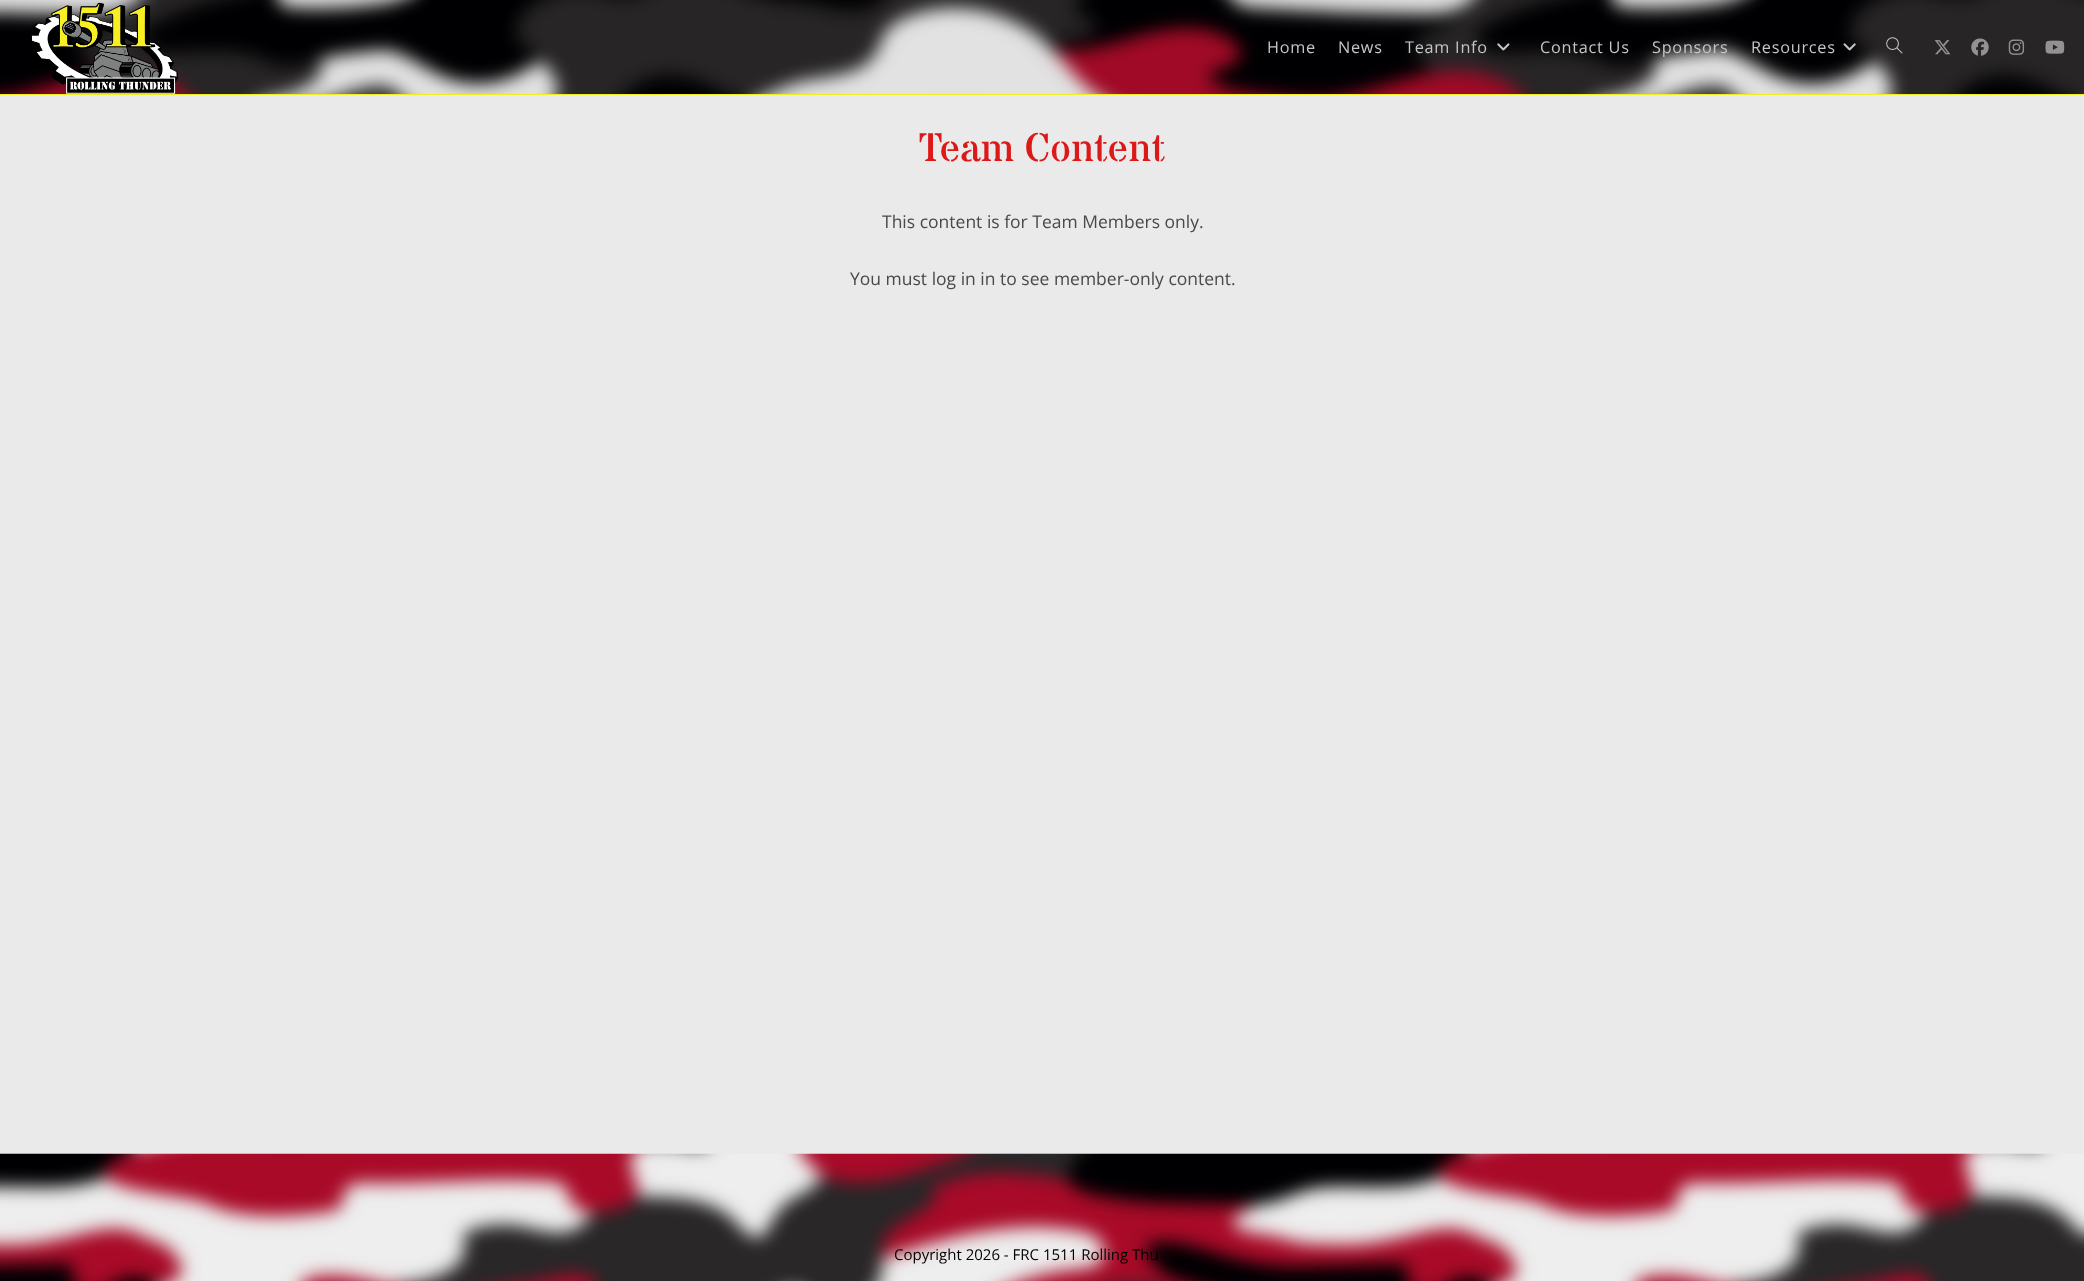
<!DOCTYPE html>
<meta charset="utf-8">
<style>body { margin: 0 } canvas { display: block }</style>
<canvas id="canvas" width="2084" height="1281"></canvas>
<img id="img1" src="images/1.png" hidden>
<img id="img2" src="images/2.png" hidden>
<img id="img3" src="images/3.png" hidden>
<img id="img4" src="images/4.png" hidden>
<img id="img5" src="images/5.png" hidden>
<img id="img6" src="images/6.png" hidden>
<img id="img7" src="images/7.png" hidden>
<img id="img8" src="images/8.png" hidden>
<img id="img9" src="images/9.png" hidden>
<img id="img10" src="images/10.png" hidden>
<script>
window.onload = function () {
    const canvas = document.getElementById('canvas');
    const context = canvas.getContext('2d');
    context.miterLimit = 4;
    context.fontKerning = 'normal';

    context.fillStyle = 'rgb(234, 234, 234)';
    context.fillRect(0, 0, 2084, 1281);
    context.drawImage(document.getElementById('img1'), 0, 0, 2084, 94);
    context.fillStyle = 'rgb(238, 238, 34)';
    context.fillRect(0, 94, 2084, 1);
    context.drawImage(document.getElementById('img2'), 31, 2, 148, 92);
    context.drawImage(document.getElementById('img3'), 1497, 43, 13, 8);
    context.drawImage(document.getElementById('img4'), 1843, 43, 13, 8);
    context.drawImage(document.getElementById('img5'), 1886, 37, 17, 17);
    context.drawImage(document.getElementById('img6'), 1934, 40, 17, 15);
    context.drawImage(document.getElementById('img7'), 1971, 38, 18, 18);
    context.drawImage(document.getElementById('img8'), 2008, 39, 17, 16);
    context.drawImage(document.getElementById('img9'), 2045, 40, 20, 14);
    context.drawImage(document.getElementById('img10'), 0, 1153, 2084, 128);
    context.letterSpacing = '0.75px';
    context.font = '16.25px Open Sans';
    context.fillStyle = 'rgb(198, 198, 198)';
    context.fillText('Home', 1267, 53);
    context.fillText('News', 1338, 53);
    context.fillText('Team Info', 1405, 53);
    context.fillText('Contact Us', 1540, 53);
    context.fillText('Sponsors', 1652, 53);
    context.fillText('Resources', 1751, 53);
    context.letterSpacing = '0px';
    context.font = '40px Stardos Stencil';
    context.fillStyle = 'rgb(221, 24, 24)';
    context.fillText('Team Content', 919, 161);
    context.font = '17.5px Open Sans';
    context.fillStyle = 'rgb(73, 73, 73)';
    context.fillText('This content is for Team Members only.', 882, 228);
    context.fillText('You must log in in to see member-only content.', 850, 285);
    context.font = '15px Open Sans';
    context.fillStyle = 'rgb(0, 0, 0)';
    context.fillText('Copyright 2026 - FRC 1511 Rolling Thu', 894, 1260);
};
</script>
